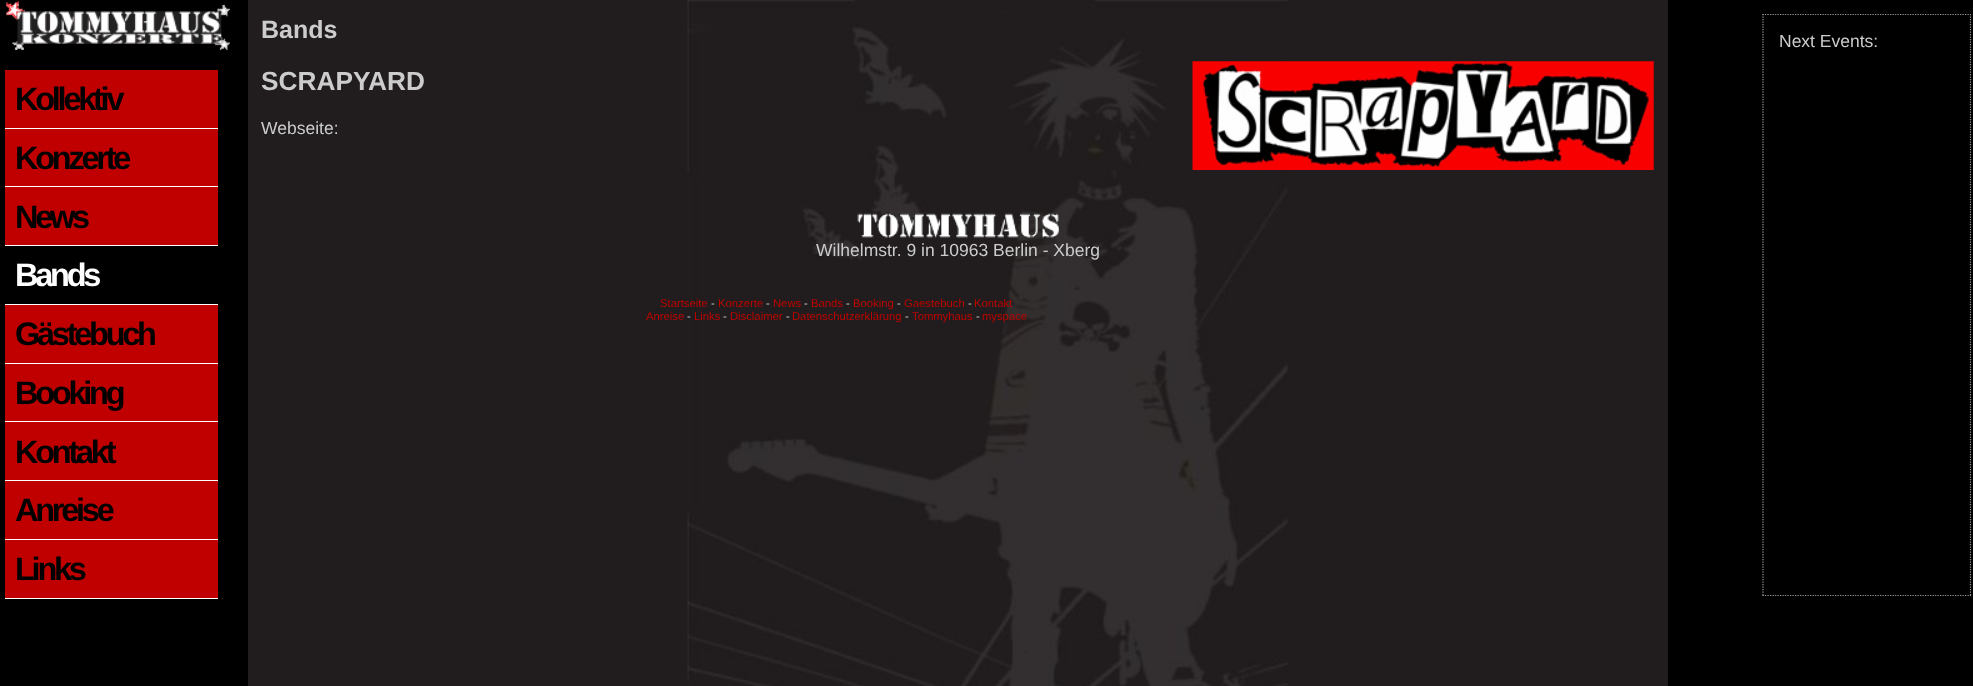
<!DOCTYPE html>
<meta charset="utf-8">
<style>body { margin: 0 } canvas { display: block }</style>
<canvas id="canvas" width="1973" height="686"></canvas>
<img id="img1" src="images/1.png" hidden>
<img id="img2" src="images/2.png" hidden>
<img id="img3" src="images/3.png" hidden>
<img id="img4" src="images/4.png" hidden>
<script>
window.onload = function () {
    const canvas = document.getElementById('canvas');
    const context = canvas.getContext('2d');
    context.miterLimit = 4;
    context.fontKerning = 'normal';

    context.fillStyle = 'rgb(0, 0, 0)';
    context.fillRect(0, 0, 1973, 686);
    context.fillStyle = 'rgb(33, 29, 30)';
    context.fillRect(248, 0, 1420, 686);
    context.drawImage(document.getElementById('img1'), 687, 0, 601, 686);
    context.drawImage(document.getElementById('img2'), 1192, 61, 462, 109);
    context.drawImage(document.getElementById('img3'), 857, 213, 203, 25);
    context.beginPath();
    context.moveTo(1762.5, 14.5);
    context.lineTo(1971, 14.5);
    context.strokeStyle = 'rgb(153, 153, 153)';
    context.lineWidth = 1.2;
    context.setLineDash([1.25, 1.25]);
    context.stroke();
    context.beginPath();
    context.moveTo(1970.5, 14);
    context.lineTo(1970.5, 596);
    context.stroke();
    context.beginPath();
    context.moveTo(1762.5, 595.5);
    context.lineTo(1971, 595.5);
    context.stroke();
    context.beginPath();
    context.moveTo(1763, 14);
    context.lineTo(1763, 596);
    context.stroke();
    context.drawImage(document.getElementById('img4'), 6, 1, 224, 49);
    context.fillStyle = 'rgb(192, 0, 0)';
    context.fillRect(5, 70, 213, 58);
    context.fillStyle = 'rgb(255, 255, 255)';
    context.fillRect(5, 128, 213, 1);
    context.fillStyle = 'rgb(192, 0, 0)';
    context.fillRect(5, 129, 213, 116);
    context.fillStyle = 'rgb(255, 255, 255)';
    context.fillRect(5, 186, 213, 1);
    context.fillRect(5, 245, 213, 1);
    context.fillRect(5, 304, 213, 1);
    context.fillStyle = 'rgb(192, 0, 0)';
    context.fillRect(5, 305, 213, 58);
    context.fillStyle = 'rgb(255, 255, 255)';
    context.fillRect(5, 363, 213, 1);
    context.fillStyle = 'rgb(192, 0, 0)';
    context.fillRect(5, 364, 213, 116);
    context.fillStyle = 'rgb(255, 255, 255)';
    context.fillRect(5, 421, 213, 1);
    context.fillRect(5, 480, 213, 1);
    context.fillStyle = 'rgb(192, 0, 0)';
    context.fillRect(5, 481, 213, 58);
    context.fillStyle = 'rgb(255, 255, 255)';
    context.fillRect(5, 539, 213, 1);
    context.fillStyle = 'rgb(192, 0, 0)';
    context.fillRect(5, 540, 213, 58);
    context.fillStyle = 'rgb(255, 255, 255)';
    context.fillRect(5, 598, 213, 1);
    context.font = 'bold 25px Liberation Sans';
    context.fillStyle = 'rgb(204, 204, 204)';
    context.fillText('Bands', 261, 38);
    context.font = 'bold 26.25px Liberation Sans';
    context.fillText('SCRAPYARD', 261, 90);
    context.font = '17.5px Liberation Sans';
    context.fillText('Webseite:', 261, 134);
    context.fillText('Wilhelmstr. 9 in 10963 Berlin - Xberg', 816, 256);
    context.font = '11.25px Liberation Sans';
    context.fillStyle = 'rgb(192, 0, 0)';
    context.fillText('Startseite', 660, 307);
    context.fillStyle = 'rgb(204, 204, 204)';
    context.fillText('-', 711, 307);
    context.fillStyle = 'rgb(192, 0, 0)';
    context.fillText('Konzerte', 718, 307);
    context.fillStyle = 'rgb(204, 204, 204)';
    context.fillText('-', 766, 307);
    context.fillStyle = 'rgb(192, 0, 0)';
    context.fillText('News', 773, 307);
    context.fillStyle = 'rgb(204, 204, 204)';
    context.fillText('-', 804, 307);
    context.fillStyle = 'rgb(192, 0, 0)';
    context.fillText('Bands', 811, 307);
    context.fillStyle = 'rgb(204, 204, 204)';
    context.fillText('-', 846, 307);
    context.fillStyle = 'rgb(192, 0, 0)';
    context.fillText('Booking', 853, 307);
    context.fillStyle = 'rgb(204, 204, 204)';
    context.fillText('-', 897, 307);
    context.fillStyle = 'rgb(192, 0, 0)';
    context.fillText('Gaestebuch', 904, 307);
    context.fillStyle = 'rgb(204, 204, 204)';
    context.fillText('-', 968, 307);
    context.fillStyle = 'rgb(192, 0, 0)';
    context.fillText('Kontakt', 974, 307);
    context.fillText('Anreise', 646, 320);
    context.fillStyle = 'rgb(204, 204, 204)';
    context.fillText('-', 687, 320);
    context.fillStyle = 'rgb(192, 0, 0)';
    context.fillText('Links', 694, 320);
    context.fillStyle = 'rgb(204, 204, 204)';
    context.fillText('-', 723, 320);
    context.fillStyle = 'rgb(192, 0, 0)';
    context.fillText('Disclaimer', 730, 320);
    context.fillStyle = 'rgb(204, 204, 204)';
    context.fillText('-', 786, 320);
    context.fillStyle = 'rgb(192, 0, 0)';
    context.fillText('Datenschutzerklärung', 792, 320);
    context.fillStyle = 'rgb(204, 204, 204)';
    context.fillText('-', 905, 320);
    context.fillStyle = 'rgb(192, 0, 0)';
    context.fillText('Tommyhaus', 912, 320);
    context.fillStyle = 'rgb(204, 204, 204)';
    context.fillText('-', 976, 320);
    context.fillStyle = 'rgb(192, 0, 0)';
    context.fillText('myspace', 982, 320);
    context.font = '17.5px Liberation Sans';
    context.fillStyle = 'rgb(204, 204, 204)';
    context.fillText('Next Events:', 1779, 47);
    context.letterSpacing = '-3.25px';
    context.font = 'bold 32.5px Liberation Sans';
    context.fillStyle = 'rgb(0, 0, 0)';
    context.fillText('Kollektiv', 15, 110);
    context.fillText('Konzerte', 15, 169);
    context.fillText('News', 15, 228);
    context.fillStyle = 'rgb(255, 255, 255)';
    context.fillText('Bands', 15, 286);
    context.fillStyle = 'rgb(0, 0, 0)';
    context.fillText('Gästebuch', 15, 345);
    context.fillText('Booking', 15, 404);
    context.fillText('Kontakt', 15, 463);
    context.fillText('Anreise', 15, 521);
    context.fillText('Links', 15, 580);
};
</script>
